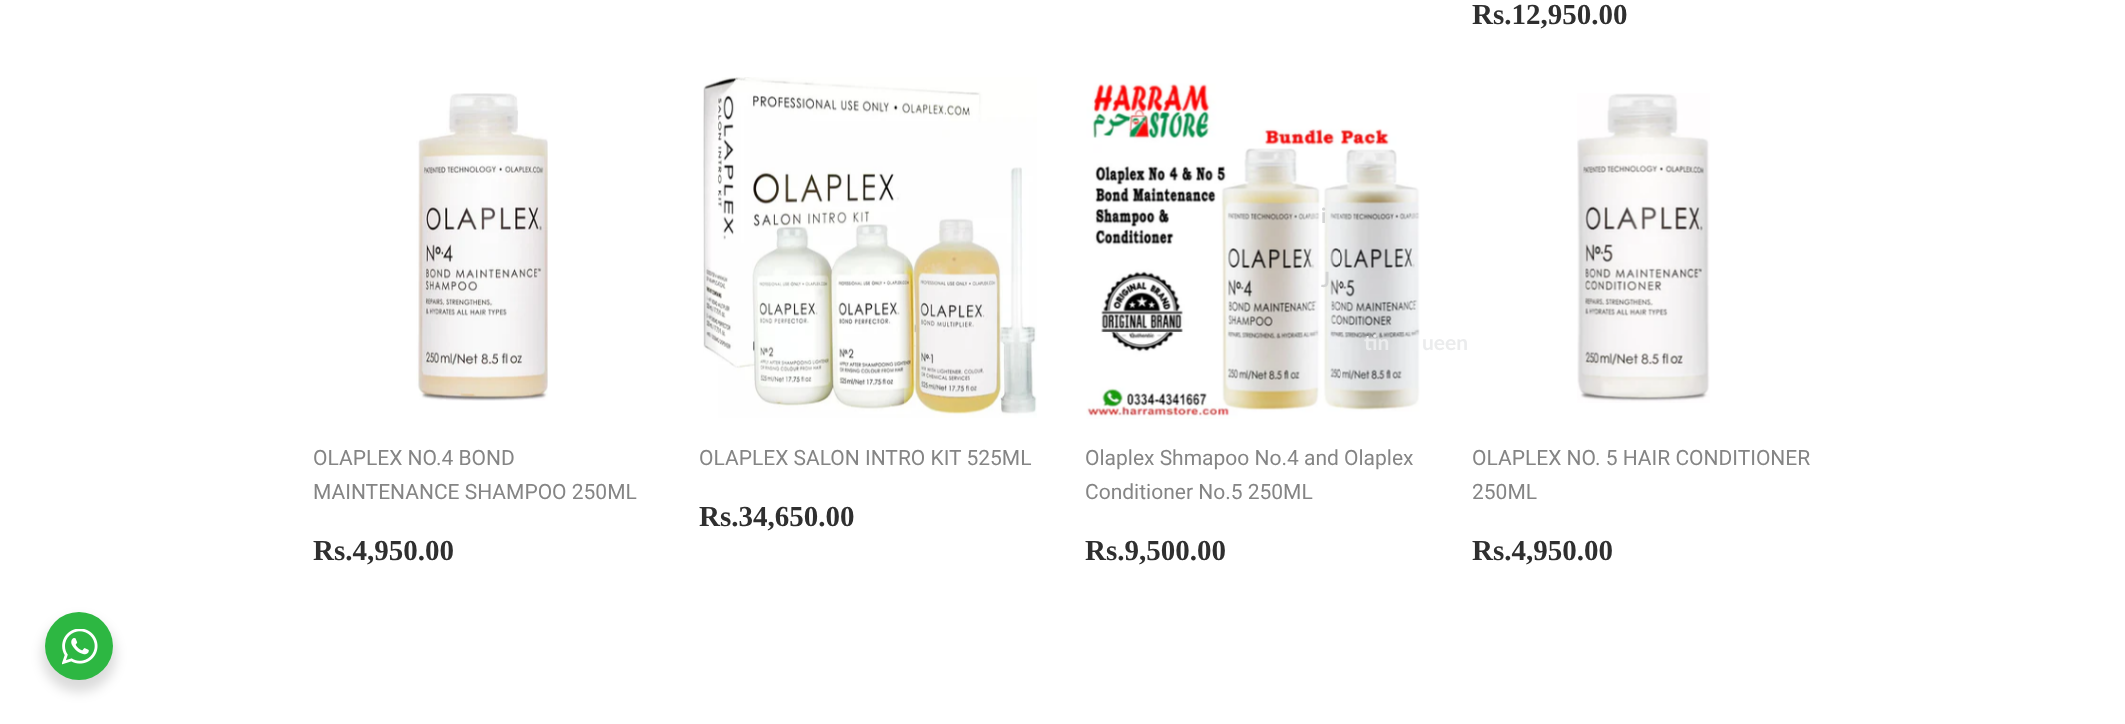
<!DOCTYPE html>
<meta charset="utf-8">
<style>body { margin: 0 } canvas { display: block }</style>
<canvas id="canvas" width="2125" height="724"></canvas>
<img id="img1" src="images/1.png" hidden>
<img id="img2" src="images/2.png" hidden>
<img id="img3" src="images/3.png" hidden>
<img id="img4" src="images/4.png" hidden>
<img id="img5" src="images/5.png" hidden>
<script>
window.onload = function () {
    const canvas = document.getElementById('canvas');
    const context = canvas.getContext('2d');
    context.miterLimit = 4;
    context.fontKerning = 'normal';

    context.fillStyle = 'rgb(255, 255, 255)';
    context.fillRect(0, 0, 2125, 724);
    context.drawImage(document.getElementById('img1'), 416, 93, 132, 308);
    context.drawImage(document.getElementById('img2'), 703, 77, 334, 341);
    context.drawImage(document.getElementById('img3'), 1086, 83, 334, 336);
    context.drawImage(document.getElementById('img4'), 1577, 93, 133, 310);
    context.fillStyle = 'rgba(0, 0, 0, 0.14)';
    context.filter = 'blur(6px)';
    context.beginPath();
    context.roundRect(42, 618, 74, 74, 37);
    context.fill();
    context.filter = 'none';
    context.fillStyle = 'rgb(45, 183, 66)';
    context.beginPath();
    context.arc(79, 646, 34, 0, 2 * Math.PI);
    context.fill();
    context.drawImage(document.getElementById('img5'), 62, 629, 36, 36);
    context.font = 'bold 29px Liberation Serif';
    context.fillStyle = 'rgb(47, 47, 47)';
    context.fillText('Rs.12,950.00', 1472, 24);
    context.font = '21px Roboto';
    context.fillStyle = 'rgb(133, 133, 133)';
    context.fillText('OLAPLEX NO.4 BOND', 313, 465);
    context.fillText('MAINTENANCE SHAMPOO 250ML', 313, 499);
    context.font = 'bold 29px Liberation Serif';
    context.fillStyle = 'rgb(47, 47, 47)';
    context.fillText('Rs.4,950.00', 313, 560);
    context.font = '21px Roboto';
    context.fillStyle = 'rgb(133, 133, 133)';
    context.fillText('OLAPLEX SALON INTRO KIT 525ML', 699, 465);
    context.font = 'bold 29px Liberation Serif';
    context.fillStyle = 'rgb(47, 47, 47)';
    context.fillText('Rs.34,650.00', 699, 526);
    context.font = '21px Roboto';
    context.fillStyle = 'rgb(133, 133, 133)';
    context.fillText('Olaplex Shmapoo No.4 and Olaplex', 1085, 465);
    context.fillText('Conditioner No.5 250ML', 1085, 499);
    context.font = 'bold 29px Liberation Serif';
    context.fillStyle = 'rgb(47, 47, 47)';
    context.fillText('Rs.9,500.00', 1085, 560);
    context.font = '21px Roboto';
    context.fillStyle = 'rgb(133, 133, 133)';
    context.fillText('OLAPLEX NO. 5 HAIR CONDITIONER', 1472, 465);
    context.fillText('250ML', 1472, 499);
    context.font = 'bold 29px Liberation Serif';
    context.fillStyle = 'rgb(47, 47, 47)';
    context.fillText('Rs.4,950.00', 1472, 560);
    context.font = 'bold 21px Lato';
    context.fillStyle = 'rgb(211, 212, 212)';
    context.fillText('i', 1321, 223);
    context.fillText('J', 1321, 287);
    context.fillStyle = 'rgb(235, 236, 237)';
    context.fillText('tin', 1364, 350);
    context.fillText('ueen', 1422, 350);
};
</script>
